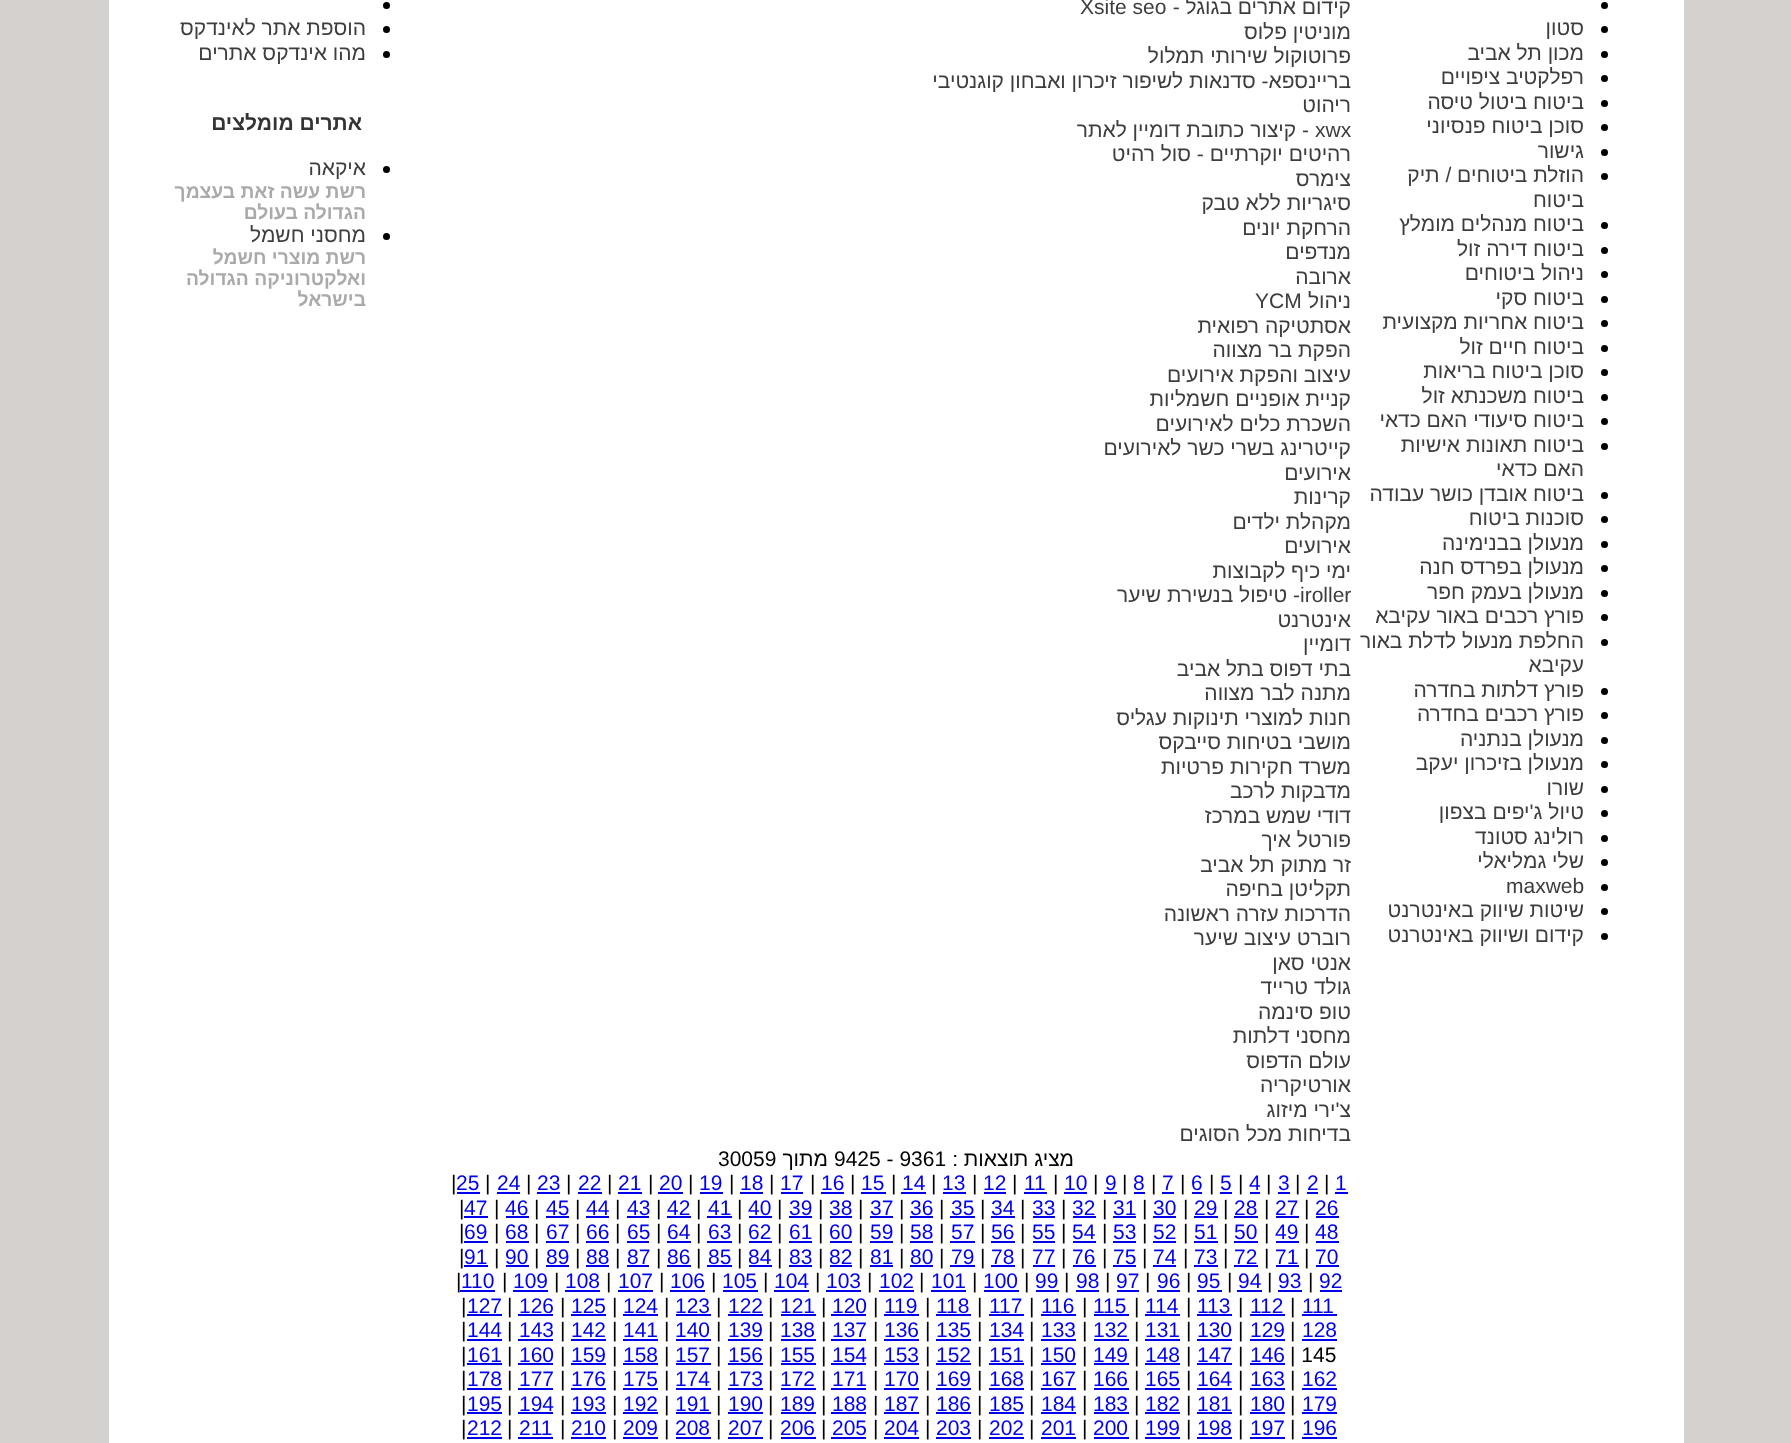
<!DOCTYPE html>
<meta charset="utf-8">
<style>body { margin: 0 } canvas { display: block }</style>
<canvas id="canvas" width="1791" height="1443"></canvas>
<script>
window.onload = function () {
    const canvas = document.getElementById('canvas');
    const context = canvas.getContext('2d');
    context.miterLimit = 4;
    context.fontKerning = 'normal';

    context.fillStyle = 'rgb(213, 209, 207)';
    context.fillRect(0, 0, 1791, 1443);
    context.fillStyle = 'rgb(255, 255, 255)';
    context.fillRect(109, 0, 1575, 1443);
    context.fillStyle = 'rgb(0, 0, 0)';
    context.beginPath();
    context.arc(1604.5, 5.5, 3.5, 0, 2 * Math.PI);
    context.fill();
    context.beginPath();
    context.arc(1604.5, 29.5, 3.5, 0, 2 * Math.PI);
    context.fill();
    context.beginPath();
    context.arc(1604.5, 54.5, 3.5, 0, 2 * Math.PI);
    context.fill();
    context.beginPath();
    context.arc(1604.5, 78.5, 3.5, 0, 2 * Math.PI);
    context.fill();
    context.beginPath();
    context.arc(1604.5, 103.5, 3.5, 0, 2 * Math.PI);
    context.fill();
    context.beginPath();
    context.arc(1604.5, 127.5, 3.5, 0, 2 * Math.PI);
    context.fill();
    context.beginPath();
    context.arc(1604.5, 152.5, 3.5, 0, 2 * Math.PI);
    context.fill();
    context.beginPath();
    context.arc(1604.5, 176.5, 3.5, 0, 2 * Math.PI);
    context.fill();
    context.beginPath();
    context.arc(1604.5, 225.5, 3.5, 0, 2 * Math.PI);
    context.fill();
    context.beginPath();
    context.arc(1604.5, 250.5, 3.5, 0, 2 * Math.PI);
    context.fill();
    context.beginPath();
    context.arc(1604.5, 274.5, 3.5, 0, 2 * Math.PI);
    context.fill();
    context.beginPath();
    context.arc(1604.5, 299.5, 3.5, 0, 2 * Math.PI);
    context.fill();
    context.beginPath();
    context.arc(1604.5, 323.5, 3.5, 0, 2 * Math.PI);
    context.fill();
    context.beginPath();
    context.arc(1604.5, 348.5, 3.5, 0, 2 * Math.PI);
    context.fill();
    context.beginPath();
    context.arc(1604.5, 372.5, 3.5, 0, 2 * Math.PI);
    context.fill();
    context.beginPath();
    context.arc(1604.5, 397.5, 3.5, 0, 2 * Math.PI);
    context.fill();
    context.beginPath();
    context.arc(1604.5, 421.5, 3.5, 0, 2 * Math.PI);
    context.fill();
    context.beginPath();
    context.arc(1604.5, 446.5, 3.5, 0, 2 * Math.PI);
    context.fill();
    context.beginPath();
    context.arc(1604.5, 495.5, 3.5, 0, 2 * Math.PI);
    context.fill();
    context.beginPath();
    context.arc(1604.5, 519.5, 3.5, 0, 2 * Math.PI);
    context.fill();
    context.beginPath();
    context.arc(1604.5, 544.5, 3.5, 0, 2 * Math.PI);
    context.fill();
    context.beginPath();
    context.arc(1604.5, 568.5, 3.5, 0, 2 * Math.PI);
    context.fill();
    context.beginPath();
    context.arc(1604.5, 593.5, 3.5, 0, 2 * Math.PI);
    context.fill();
    context.beginPath();
    context.arc(1604.5, 617.5, 3.5, 0, 2 * Math.PI);
    context.fill();
    context.beginPath();
    context.arc(1604.5, 642.5, 3.5, 0, 2 * Math.PI);
    context.fill();
    context.beginPath();
    context.arc(1604.5, 691.5, 3.5, 0, 2 * Math.PI);
    context.fill();
    context.beginPath();
    context.arc(1604.5, 715.5, 3.5, 0, 2 * Math.PI);
    context.fill();
    context.beginPath();
    context.arc(1604.5, 740.5, 3.5, 0, 2 * Math.PI);
    context.fill();
    context.beginPath();
    context.arc(1604.5, 764.5, 3.5, 0, 2 * Math.PI);
    context.fill();
    context.beginPath();
    context.arc(1604.5, 789.5, 3.5, 0, 2 * Math.PI);
    context.fill();
    context.beginPath();
    context.arc(1604.5, 813.5, 3.5, 0, 2 * Math.PI);
    context.fill();
    context.beginPath();
    context.arc(1604.5, 838.5, 3.5, 0, 2 * Math.PI);
    context.fill();
    context.beginPath();
    context.arc(1604.5, 862.5, 3.5, 0, 2 * Math.PI);
    context.fill();
    context.beginPath();
    context.arc(1604.5, 887.5, 3.5, 0, 2 * Math.PI);
    context.fill();
    context.beginPath();
    context.arc(1604.5, 911.5, 3.5, 0, 2 * Math.PI);
    context.fill();
    context.beginPath();
    context.arc(1604.5, 936.5, 3.5, 0, 2 * Math.PI);
    context.fill();
    context.fillStyle = 'rgb(0, 0, 238)';
    context.fillRect(1335, 1192, 13, 2);
    context.fillRect(1307, 1192, 11, 2);
    context.fillRect(1278, 1192, 12, 2);
    context.fillRect(1250, 1192, 10, 2);
    context.fillRect(1220, 1192, 12, 2);
    context.fillRect(1192, 1192, 10, 2);
    context.fillRect(1162, 1192, 12, 2);
    context.fillRect(1134, 1192, 11, 2);
    context.fillRect(1104, 1192, 13, 2);
    context.fillRect(1064, 1192, 23, 2);
    context.fillRect(1024, 1192, 23, 2);
    context.fillRect(984, 1192, 22, 2);
    context.fillRect(943, 1192, 23, 2);
    context.fillRect(901, 1192, 25, 2);
    context.fillRect(861, 1192, 25, 2);
    context.fillRect(821, 1192, 23, 2);
    context.fillRect(781, 1192, 22, 2);
    context.fillRect(740, 1192, 23, 2);
    context.fillRect(700, 1192, 23, 2);
    context.fillRect(658, 1192, 25, 2);
    context.fillRect(618, 1192, 24, 2);
    context.fillRect(578, 1192, 24, 2);
    context.fillRect(537, 1192, 23, 2);
    context.fillRect(497, 1192, 23, 2);
    context.fillRect(457, 1192, 23, 2);
    context.fillRect(1316, 1216, 23, 2);
    context.fillRect(1276, 1216, 23, 2);
    context.fillRect(1234, 1216, 24, 2);
    context.fillRect(1194, 1216, 24, 2);
    context.fillRect(1153, 1216, 23, 2);
    context.fillRect(1113, 1216, 23, 2);
    context.fillRect(1073, 1216, 23, 2);
    context.fillRect(1033, 1216, 22, 2);
    context.fillRect(991, 1216, 24, 2);
    context.fillRect(950, 1216, 25, 2);
    context.fillRect(910, 1216, 23, 2);
    context.fillRect(870, 1216, 23, 2);
    context.fillRect(830, 1216, 22, 2);
    context.fillRect(789, 1216, 23, 2);
    context.fillRect(749, 1216, 23, 2);
    context.fillRect(707, 1216, 25, 2);
    context.fillRect(667, 1216, 24, 2);
    context.fillRect(627, 1216, 22, 2);
    context.fillRect(586, 1216, 23, 2);
    context.fillRect(546, 1216, 23, 2);
    context.fillRect(506, 1216, 23, 2);
    context.fillRect(464, 1216, 24, 2);
    context.fillRect(1316, 1241, 23, 2);
    context.fillRect(1276, 1241, 23, 2);
    context.fillRect(1234, 1241, 24, 2);
    context.fillRect(1194, 1241, 24, 2);
    context.fillRect(1153, 1241, 23, 2);
    context.fillRect(1113, 1241, 23, 2);
    context.fillRect(1073, 1241, 23, 2);
    context.fillRect(1033, 1241, 22, 2);
    context.fillRect(991, 1241, 24, 2);
    context.fillRect(950, 1241, 25, 2);
    context.fillRect(910, 1241, 23, 2);
    context.fillRect(870, 1241, 23, 2);
    context.fillRect(830, 1241, 22, 2);
    context.fillRect(789, 1241, 23, 2);
    context.fillRect(749, 1241, 23, 2);
    context.fillRect(707, 1241, 25, 2);
    context.fillRect(667, 1241, 24, 2);
    context.fillRect(627, 1241, 22, 2);
    context.fillRect(586, 1241, 23, 2);
    context.fillRect(546, 1241, 23, 2);
    context.fillRect(506, 1241, 23, 2);
    context.fillRect(464, 1241, 24, 2);
    context.fillRect(1316, 1265, 23, 2);
    context.fillRect(1276, 1265, 23, 2);
    context.fillRect(1234, 1265, 24, 2);
    context.fillRect(1194, 1265, 24, 2);
    context.fillRect(1153, 1265, 23, 2);
    context.fillRect(1113, 1265, 23, 2);
    context.fillRect(1073, 1265, 23, 2);
    context.fillRect(1033, 1265, 22, 2);
    context.fillRect(991, 1265, 24, 2);
    context.fillRect(950, 1265, 25, 2);
    context.fillRect(910, 1265, 23, 2);
    context.fillRect(870, 1265, 23, 2);
    context.fillRect(830, 1265, 22, 2);
    context.fillRect(789, 1265, 23, 2);
    context.fillRect(749, 1265, 23, 2);
    context.fillRect(707, 1265, 25, 2);
    context.fillRect(667, 1265, 24, 2);
    context.fillRect(627, 1265, 22, 2);
    context.fillRect(586, 1265, 23, 2);
    context.fillRect(546, 1265, 23, 2);
    context.fillRect(506, 1265, 23, 2);
    context.fillRect(464, 1265, 24, 2);
    context.fillRect(1320, 1290, 22, 2);
    context.fillRect(1278, 1290, 24, 2);
    context.fillRect(1237, 1290, 25, 2);
    context.fillRect(1197, 1290, 25, 2);
    context.fillRect(1157, 1290, 23, 2);
    context.fillRect(1117, 1290, 22, 2);
    context.fillRect(1076, 1290, 23, 2);
    context.fillRect(1036, 1290, 23, 2);
    context.fillRect(984, 1290, 35, 2);
    context.fillRect(931, 1290, 35, 2);
    context.fillRect(879, 1290, 35, 2);
    context.fillRect(826, 1290, 35, 2);
    context.fillRect(774, 1290, 35, 2);
    context.fillRect(723, 1290, 35, 2);
    context.fillRect(670, 1290, 35, 2);
    context.fillRect(618, 1290, 35, 2);
    context.fillRect(565, 1290, 35, 2);
    context.fillRect(513, 1290, 35, 2);
    context.fillRect(460, 1290, 35, 2);
    context.fillRect(1302, 1314, 35, 2);
    context.fillRect(1250, 1314, 35, 2);
    context.fillRect(1197, 1314, 35, 2);
    context.fillRect(1145, 1314, 35, 2);
    context.fillRect(1094, 1314, 35, 2);
    context.fillRect(1041, 1314, 35, 2);
    context.fillRect(989, 1314, 35, 2);
    context.fillRect(936, 1314, 35, 2);
    context.fillRect(884, 1314, 35, 2);
    context.fillRect(831, 1314, 35, 2);
    context.fillRect(781, 1314, 35, 2);
    context.fillRect(728, 1314, 35, 2);
    context.fillRect(676, 1314, 35, 2);
    context.fillRect(623, 1314, 35, 2);
    context.fillRect(571, 1314, 35, 2);
    context.fillRect(518, 1314, 35, 2);
    context.fillRect(467, 1314, 35, 2);
    context.fillRect(1302, 1339, 35, 2);
    context.fillRect(1250, 1339, 35, 2);
    context.fillRect(1197, 1339, 35, 2);
    context.fillRect(1145, 1339, 35, 2);
    context.fillRect(1094, 1339, 35, 2);
    context.fillRect(1041, 1339, 35, 2);
    context.fillRect(989, 1339, 35, 2);
    context.fillRect(936, 1339, 35, 2);
    context.fillRect(884, 1339, 35, 2);
    context.fillRect(831, 1339, 35, 2);
    context.fillRect(781, 1339, 35, 2);
    context.fillRect(728, 1339, 35, 2);
    context.fillRect(676, 1339, 35, 2);
    context.fillRect(623, 1339, 35, 2);
    context.fillRect(571, 1339, 35, 2);
    context.fillRect(518, 1339, 35, 2);
    context.fillRect(467, 1339, 35, 2);
    context.fillRect(1250, 1363, 35, 2);
    context.fillRect(1197, 1363, 35, 2);
    context.fillRect(1145, 1363, 35, 2);
    context.fillRect(1094, 1363, 35, 2);
    context.fillRect(1041, 1363, 35, 2);
    context.fillRect(989, 1363, 35, 2);
    context.fillRect(936, 1363, 35, 2);
    context.fillRect(884, 1363, 35, 2);
    context.fillRect(831, 1363, 35, 2);
    context.fillRect(781, 1363, 35, 2);
    context.fillRect(728, 1363, 35, 2);
    context.fillRect(676, 1363, 35, 2);
    context.fillRect(623, 1363, 35, 2);
    context.fillRect(571, 1363, 35, 2);
    context.fillRect(518, 1363, 35, 2);
    context.fillRect(467, 1363, 35, 2);
    context.fillRect(1302, 1388, 35, 2);
    context.fillRect(1250, 1388, 35, 2);
    context.fillRect(1197, 1388, 35, 2);
    context.fillRect(1145, 1388, 35, 2);
    context.fillRect(1094, 1388, 35, 2);
    context.fillRect(1041, 1388, 35, 2);
    context.fillRect(989, 1388, 35, 2);
    context.fillRect(936, 1388, 35, 2);
    context.fillRect(884, 1388, 35, 2);
    context.fillRect(831, 1388, 35, 2);
    context.fillRect(781, 1388, 35, 2);
    context.fillRect(728, 1388, 35, 2);
    context.fillRect(676, 1388, 35, 2);
    context.fillRect(623, 1388, 35, 2);
    context.fillRect(571, 1388, 35, 2);
    context.fillRect(518, 1388, 35, 2);
    context.fillRect(467, 1388, 35, 2);
    context.fillRect(1302, 1412, 35, 2);
    context.fillRect(1250, 1412, 35, 2);
    context.fillRect(1197, 1412, 35, 2);
    context.fillRect(1145, 1412, 35, 2);
    context.fillRect(1094, 1412, 35, 2);
    context.fillRect(1041, 1412, 35, 2);
    context.fillRect(989, 1412, 35, 2);
    context.fillRect(936, 1412, 35, 2);
    context.fillRect(884, 1412, 35, 2);
    context.fillRect(831, 1412, 35, 2);
    context.fillRect(781, 1412, 35, 2);
    context.fillRect(728, 1412, 35, 2);
    context.fillRect(676, 1412, 35, 2);
    context.fillRect(623, 1412, 35, 2);
    context.fillRect(571, 1412, 35, 2);
    context.fillRect(518, 1412, 35, 2);
    context.fillRect(467, 1412, 35, 2);
    context.fillRect(1302, 1437, 35, 2);
    context.fillRect(1250, 1437, 35, 2);
    context.fillRect(1197, 1437, 35, 2);
    context.fillRect(1145, 1437, 35, 2);
    context.fillRect(1094, 1437, 35, 2);
    context.fillRect(1041, 1437, 35, 2);
    context.fillRect(989, 1437, 35, 2);
    context.fillRect(936, 1437, 35, 2);
    context.fillRect(884, 1437, 35, 2);
    context.fillRect(831, 1437, 35, 2);
    context.fillRect(781, 1437, 35, 2);
    context.fillRect(728, 1437, 35, 2);
    context.fillRect(676, 1437, 35, 2);
    context.fillRect(623, 1437, 35, 2);
    context.fillRect(571, 1437, 35, 2);
    context.fillRect(518, 1437, 35, 2);
    context.fillRect(467, 1437, 35, 2);
    context.fillStyle = 'rgb(0, 0, 0)';
    context.beginPath();
    context.arc(386.5, 5.5, 3.5, 0, 2 * Math.PI);
    context.fill();
    context.beginPath();
    context.arc(386.5, 29.5, 3.5, 0, 2 * Math.PI);
    context.fill();
    context.beginPath();
    context.arc(386.5, 54.5, 3.5, 0, 2 * Math.PI);
    context.fill();
    context.beginPath();
    context.arc(386.5, 169.5, 3.5, 0, 2 * Math.PI);
    context.fill();
    context.beginPath();
    context.arc(386.5, 236.5, 3.5, 0, 2 * Math.PI);
    context.fill();
    context.direction = 'rtl';
    context.font = '21px Liberation Sans';
    context.fillStyle = 'rgb(61, 61, 61)';
    context.fillText('סטון', 1584, 35);
    context.fillText('מכון תל אביב', 1584, 60);
    context.fillText('רפלקטיב ציפויים', 1584, 84);
    context.fillText('ביטוח ביטול טיסה', 1584, 109);
    context.fillText('סוכן ביטוח פנסיוני', 1584, 133);
    context.fillText('גישור', 1584, 158);
    context.fillText('הוזלת ביטוחים / תיק', 1584, 182);
    context.fillText('ביטוח', 1584, 207);
    context.fillText('ביטוח מנהלים מומלץ', 1584, 231);
    context.fillText('ביטוח דירה זול', 1584, 256);
    context.fillText('ניהול ביטוחים', 1584, 280);
    context.fillText('ביטוח סקי', 1584, 305);
    context.fillText('ביטוח אחריות מקצועית', 1584, 329);
    context.fillText('ביטוח חיים זול', 1584, 354);
    context.fillText('סוכן ביטוח בריאות', 1584, 378);
    context.fillText('ביטוח משכנתא זול', 1584, 403);
    context.fillText('ביטוח סיעודי האם כדאי', 1584, 427);
    context.fillText('ביטוח תאונות אישיות', 1584, 452);
    context.fillText('האם כדאי', 1584, 476);
    context.fillText('ביטוח אובדן כושר עבודה', 1584, 501);
    context.fillText('סוכנות ביטוח', 1584, 525);
    context.fillText('מנעולן בבנימינה', 1584, 550);
    context.fillText('מנעולן בפרדס חנה', 1584, 574);
    context.fillText('מנעולן בעמק חפר', 1584, 599);
    context.fillText('פורץ רכבים באור עקיבא', 1584, 623);
    context.fillText('החלפת מנעול לדלת באור', 1584, 648);
    context.fillText('עקיבא', 1584, 672);
    context.fillText('פורץ דלתות בחדרה', 1584, 697);
    context.fillText('פורץ רכבים בחדרה', 1584, 721);
    context.fillText('מנעולן בנתניה', 1584, 746);
    context.fillText('מנעולן בזיכרון יעקב', 1584, 770);
    context.fillText('שורו', 1584, 795);
    context.fillText('טיול ג\'יפים בצפון', 1584, 819);
    context.fillText('רולינג סטונד', 1584, 844);
    context.fillText('שלי גמליאלי', 1584, 868);
    context.direction = 'ltr';
    context.fillText('maxweb', 1506, 893);
    context.direction = 'rtl';
    context.fillText('שיטות שיווק באינטרנט', 1584, 917);
    context.fillText('קידום ושיווק באינטרנט', 1584, 942);
    context.fillText('קידום אתרים בגוגל -', 1351, 14);
    context.direction = 'ltr';
    context.fillText('Xsite seo', 1080, 14);
    context.direction = 'rtl';
    context.fillText('מוניטין פלוס', 1351, 39);
    context.fillText('פרוטוקול שירותי תמלול', 1351, 63);
    context.fillText('בריינספא- סדנאות לשיפור זיכרון ואבחון קוגנטיבי', 1351, 88);
    context.fillText('ריהוט', 1351, 112);
    context.direction = 'ltr';
    context.fillText('xwx', 1315, 137);
    context.direction = 'rtl';
    context.fillText('- קיצור כתובת דומיין לאתר', 1309, 137);
    context.fillText('רהיטים יוקרתיים - סול רהיט', 1351, 161);
    context.fillText('צימרס', 1351, 186);
    context.fillText('סיגריות ללא טבק', 1351, 210);
    context.fillText('הרחקת יונים', 1351, 235);
    context.fillText('מנדפים', 1351, 259);
    context.fillText('ארובה', 1351, 284);
    context.fillText('ניהול', 1351, 308);
    context.direction = 'ltr';
    context.fillText('YCM', 1255, 308);
    context.direction = 'rtl';
    context.fillText('אסתטיקה רפואית', 1351, 333);
    context.fillText('הפקת בר מצווה', 1351, 357);
    context.fillText('עיצוב והפקת אירועים', 1351, 382);
    context.fillText('קניית אופניים חשמליות', 1351, 406);
    context.fillText('השכרת כלים לאירועים', 1351, 431);
    context.fillText('קייטרינג בשרי כשר לאירועים', 1351, 455);
    context.fillText('אירועים', 1351, 480);
    context.fillText('קרינות', 1351, 504);
    context.fillText('מקהלת ילדים', 1351, 529);
    context.fillText('אירועים', 1351, 553);
    context.fillText('ימי כיף לקבוצות', 1351, 578);
    context.direction = 'ltr';
    context.fillText('iroller', 1300, 602);
    context.direction = 'rtl';
    context.fillText('- טיפול בנשירת שיער', 1300, 602);
    context.fillText('אינטרנט', 1351, 627);
    context.fillText('דומיין', 1351, 651);
    context.fillText('בתי דפוס בתל אביב', 1351, 676);
    context.fillText('מתנה לבר מצווה', 1351, 700);
    context.fillText('חנות למוצרי תינוקות עגליס', 1351, 725);
    context.fillText('מושבי בטיחות סייבקס', 1351, 749);
    context.fillText('משרד חקירות פרטיות', 1351, 774);
    context.fillText('מדבקות לרכב', 1351, 798);
    context.fillText('דודי שמש במרכז', 1351, 823);
    context.fillText('פורטל איך', 1351, 847);
    context.fillText('זר מתוק תל אביב', 1351, 872);
    context.fillText('תקליטן בחיפה', 1351, 896);
    context.fillText('הדרכות עזרה ראשונה', 1351, 921);
    context.fillText('רוברט עיצוב שיער', 1351, 945);
    context.fillText('אנטי סאן', 1351, 970);
    context.fillText('גולד טרייד', 1351, 994);
    context.fillText('טופ סינמה', 1351, 1019);
    context.fillText('מחסני דלתות', 1351, 1043);
    context.fillText('עולם הדפוס', 1351, 1068);
    context.fillText('אורטיקריה', 1351, 1092);
    context.fillText('צ\'ירי מיזוג', 1351, 1117);
    context.fillText('בדיחות מכל הסוגים', 1351, 1141);
    context.fillStyle = 'rgb(0, 0, 0)';
    context.fillText('מציג תוצאות :', 1074, 1166);
    context.direction = 'ltr';
    context.fillText('9425 - 9361', 834, 1166);
    context.direction = 'rtl';
    context.fillText('מתוך', 828, 1166);
    context.direction = 'ltr';
    context.fillText('30059', 718, 1166);
    context.fillStyle = 'rgb(0, 0, 238)';
    context.fillText('1', 1335, 1190);
    context.fillStyle = 'rgb(0, 0, 0)';
    context.fillText('|', 1324, 1190);
    context.fillStyle = 'rgb(0, 0, 238)';
    context.fillText('2', 1307, 1190);
    context.fillStyle = 'rgb(0, 0, 0)';
    context.fillText('|', 1295, 1190);
    context.fillStyle = 'rgb(0, 0, 238)';
    context.fillText('3', 1278, 1190);
    context.fillStyle = 'rgb(0, 0, 0)';
    context.fillText('|', 1266, 1190);
    context.fillStyle = 'rgb(0, 0, 238)';
    context.fillText('4', 1249, 1190);
    context.fillStyle = 'rgb(0, 0, 0)';
    context.fillText('|', 1238, 1190);
    context.fillStyle = 'rgb(0, 0, 238)';
    context.fillText('5', 1220, 1190);
    context.fillStyle = 'rgb(0, 0, 0)';
    context.fillText('|', 1209, 1190);
    context.fillStyle = 'rgb(0, 0, 238)';
    context.fillText('6', 1191, 1190);
    context.fillStyle = 'rgb(0, 0, 0)';
    context.fillText('|', 1180, 1190);
    context.fillStyle = 'rgb(0, 0, 238)';
    context.fillText('7', 1162, 1190);
    context.fillStyle = 'rgb(0, 0, 0)';
    context.fillText('|', 1151, 1190);
    context.fillStyle = 'rgb(0, 0, 238)';
    context.fillText('8', 1133, 1190);
    context.fillStyle = 'rgb(0, 0, 0)';
    context.fillText('|', 1122, 1190);
    context.fillStyle = 'rgb(0, 0, 238)';
    context.fillText('9', 1105, 1190);
    context.fillStyle = 'rgb(0, 0, 0)';
    context.fillText('|', 1093, 1190);
    context.fillStyle = 'rgb(0, 0, 238)';
    context.fillText('10', 1064, 1190);
    context.fillStyle = 'rgb(0, 0, 0)';
    context.fillText('|', 1053, 1190);
    context.fillStyle = 'rgb(0, 0, 238)';
    context.fillText('11', 1024, 1190);
    context.fillStyle = 'rgb(0, 0, 0)';
    context.fillText('|', 1012, 1190);
    context.fillStyle = 'rgb(0, 0, 238)';
    context.fillText('12', 983, 1190);
    context.fillStyle = 'rgb(0, 0, 0)';
    context.fillText('|', 972, 1190);
    context.fillStyle = 'rgb(0, 0, 238)';
    context.fillText('13', 942, 1190);
    context.fillStyle = 'rgb(0, 0, 0)';
    context.fillText('|', 931, 1190);
    context.fillStyle = 'rgb(0, 0, 238)';
    context.fillText('14', 902, 1190);
    context.fillStyle = 'rgb(0, 0, 0)';
    context.fillText('|', 891, 1190);
    context.fillStyle = 'rgb(0, 0, 238)';
    context.fillText('15', 861, 1190);
    context.fillStyle = 'rgb(0, 0, 0)';
    context.fillText('|', 850, 1190);
    context.fillStyle = 'rgb(0, 0, 238)';
    context.fillText('16', 821, 1190);
    context.fillStyle = 'rgb(0, 0, 0)';
    context.fillText('|', 810, 1190);
    context.fillStyle = 'rgb(0, 0, 238)';
    context.fillText('17', 780, 1190);
    context.fillStyle = 'rgb(0, 0, 0)';
    context.fillText('|', 769, 1190);
    context.fillStyle = 'rgb(0, 0, 238)';
    context.fillText('18', 740, 1190);
    context.fillStyle = 'rgb(0, 0, 0)';
    context.fillText('|', 729, 1190);
    context.fillStyle = 'rgb(0, 0, 238)';
    context.fillText('19', 699, 1190);
    context.fillStyle = 'rgb(0, 0, 0)';
    context.fillText('|', 688, 1190);
    context.fillStyle = 'rgb(0, 0, 238)';
    context.fillText('20', 659, 1190);
    context.fillStyle = 'rgb(0, 0, 0)';
    context.fillText('|', 648, 1190);
    context.fillStyle = 'rgb(0, 0, 238)';
    context.fillText('21', 618, 1190);
    context.fillStyle = 'rgb(0, 0, 0)';
    context.fillText('|', 607, 1190);
    context.fillStyle = 'rgb(0, 0, 238)';
    context.fillText('22', 578, 1190);
    context.fillStyle = 'rgb(0, 0, 0)';
    context.fillText('|', 566, 1190);
    context.fillStyle = 'rgb(0, 0, 238)';
    context.fillText('23', 537, 1190);
    context.fillStyle = 'rgb(0, 0, 0)';
    context.fillText('|', 526, 1190);
    context.fillStyle = 'rgb(0, 0, 238)';
    context.fillText('24', 497, 1190);
    context.fillStyle = 'rgb(0, 0, 0)';
    context.fillText('|', 485, 1190);
    context.fillStyle = 'rgb(0, 0, 238)';
    context.fillText('25', 456, 1190);
    context.fillStyle = 'rgb(0, 0, 0)';
    context.fillText('|', 451, 1190);
    context.fillStyle = 'rgb(0, 0, 238)';
    context.fillText('26', 1315, 1215);
    context.fillStyle = 'rgb(0, 0, 0)';
    context.fillText('|', 1304, 1215);
    context.fillStyle = 'rgb(0, 0, 238)';
    context.fillText('27', 1275, 1215);
    context.fillStyle = 'rgb(0, 0, 0)';
    context.fillText('|', 1264, 1215);
    context.fillStyle = 'rgb(0, 0, 238)';
    context.fillText('28', 1234, 1215);
    context.fillStyle = 'rgb(0, 0, 0)';
    context.fillText('|', 1223, 1215);
    context.fillStyle = 'rgb(0, 0, 238)';
    context.fillText('29', 1194, 1215);
    context.fillStyle = 'rgb(0, 0, 0)';
    context.fillText('|', 1183, 1215);
    context.fillStyle = 'rgb(0, 0, 238)';
    context.fillText('30', 1153, 1215);
    context.fillStyle = 'rgb(0, 0, 0)';
    context.fillText('|', 1142, 1215);
    context.fillStyle = 'rgb(0, 0, 238)';
    context.fillText('31', 1113, 1215);
    context.fillStyle = 'rgb(0, 0, 0)';
    context.fillText('|', 1102, 1215);
    context.fillStyle = 'rgb(0, 0, 238)';
    context.fillText('32', 1072, 1215);
    context.fillStyle = 'rgb(0, 0, 0)';
    context.fillText('|', 1061, 1215);
    context.fillStyle = 'rgb(0, 0, 238)';
    context.fillText('33', 1032, 1215);
    context.fillStyle = 'rgb(0, 0, 0)';
    context.fillText('|', 1020, 1215);
    context.fillStyle = 'rgb(0, 0, 238)';
    context.fillText('34', 991, 1215);
    context.fillStyle = 'rgb(0, 0, 0)';
    context.fillText('|', 980, 1215);
    context.fillStyle = 'rgb(0, 0, 238)';
    context.fillText('35', 951, 1215);
    context.fillStyle = 'rgb(0, 0, 0)';
    context.fillText('|', 939, 1215);
    context.fillStyle = 'rgb(0, 0, 238)';
    context.fillText('36', 910, 1215);
    context.fillStyle = 'rgb(0, 0, 0)';
    context.fillText('|', 899, 1215);
    context.fillStyle = 'rgb(0, 0, 238)';
    context.fillText('37', 870, 1215);
    context.fillStyle = 'rgb(0, 0, 0)';
    context.fillText('|', 858, 1215);
    context.fillStyle = 'rgb(0, 0, 238)';
    context.fillText('38', 829, 1215);
    context.fillStyle = 'rgb(0, 0, 0)';
    context.fillText('|', 818, 1215);
    context.fillStyle = 'rgb(0, 0, 238)';
    context.fillText('39', 789, 1215);
    context.fillStyle = 'rgb(0, 0, 0)';
    context.fillText('|', 777, 1215);
    context.fillStyle = 'rgb(0, 0, 238)';
    context.fillText('40', 748, 1215);
    context.fillStyle = 'rgb(0, 0, 0)';
    context.fillText('|', 737, 1215);
    context.fillStyle = 'rgb(0, 0, 238)';
    context.fillText('41', 708, 1215);
    context.fillStyle = 'rgb(0, 0, 0)';
    context.fillText('|', 696, 1215);
    context.fillStyle = 'rgb(0, 0, 238)';
    context.fillText('42', 667, 1215);
    context.fillStyle = 'rgb(0, 0, 0)';
    context.fillText('|', 656, 1215);
    context.fillStyle = 'rgb(0, 0, 238)';
    context.fillText('43', 627, 1215);
    context.fillStyle = 'rgb(0, 0, 0)';
    context.fillText('|', 615, 1215);
    context.fillStyle = 'rgb(0, 0, 238)';
    context.fillText('44', 586, 1215);
    context.fillStyle = 'rgb(0, 0, 0)';
    context.fillText('|', 575, 1215);
    context.fillStyle = 'rgb(0, 0, 238)';
    context.fillText('45', 546, 1215);
    context.fillStyle = 'rgb(0, 0, 0)';
    context.fillText('|', 534, 1215);
    context.fillStyle = 'rgb(0, 0, 238)';
    context.fillText('46', 505, 1215);
    context.fillStyle = 'rgb(0, 0, 0)';
    context.fillText('|', 494, 1215);
    context.fillStyle = 'rgb(0, 0, 238)';
    context.fillText('47', 464, 1215);
    context.fillStyle = 'rgb(0, 0, 0)';
    context.fillText('|', 459, 1215);
    context.fillStyle = 'rgb(0, 0, 238)';
    context.fillText('48', 1315, 1239);
    context.fillStyle = 'rgb(0, 0, 0)';
    context.fillText('|', 1304, 1239);
    context.fillStyle = 'rgb(0, 0, 238)';
    context.fillText('49', 1275, 1239);
    context.fillStyle = 'rgb(0, 0, 0)';
    context.fillText('|', 1264, 1239);
    context.fillStyle = 'rgb(0, 0, 238)';
    context.fillText('50', 1234, 1239);
    context.fillStyle = 'rgb(0, 0, 0)';
    context.fillText('|', 1223, 1239);
    context.fillStyle = 'rgb(0, 0, 238)';
    context.fillText('51', 1194, 1239);
    context.fillStyle = 'rgb(0, 0, 0)';
    context.fillText('|', 1183, 1239);
    context.fillStyle = 'rgb(0, 0, 238)';
    context.fillText('52', 1153, 1239);
    context.fillStyle = 'rgb(0, 0, 0)';
    context.fillText('|', 1142, 1239);
    context.fillStyle = 'rgb(0, 0, 238)';
    context.fillText('53', 1113, 1239);
    context.fillStyle = 'rgb(0, 0, 0)';
    context.fillText('|', 1102, 1239);
    context.fillStyle = 'rgb(0, 0, 238)';
    context.fillText('54', 1072, 1239);
    context.fillStyle = 'rgb(0, 0, 0)';
    context.fillText('|', 1061, 1239);
    context.fillStyle = 'rgb(0, 0, 238)';
    context.fillText('55', 1032, 1239);
    context.fillStyle = 'rgb(0, 0, 0)';
    context.fillText('|', 1020, 1239);
    context.fillStyle = 'rgb(0, 0, 238)';
    context.fillText('56', 991, 1239);
    context.fillStyle = 'rgb(0, 0, 0)';
    context.fillText('|', 980, 1239);
    context.fillStyle = 'rgb(0, 0, 238)';
    context.fillText('57', 951, 1239);
    context.fillStyle = 'rgb(0, 0, 0)';
    context.fillText('|', 939, 1239);
    context.fillStyle = 'rgb(0, 0, 238)';
    context.fillText('58', 910, 1239);
    context.fillStyle = 'rgb(0, 0, 0)';
    context.fillText('|', 899, 1239);
    context.fillStyle = 'rgb(0, 0, 238)';
    context.fillText('59', 870, 1239);
    context.fillStyle = 'rgb(0, 0, 0)';
    context.fillText('|', 858, 1239);
    context.fillStyle = 'rgb(0, 0, 238)';
    context.fillText('60', 829, 1239);
    context.fillStyle = 'rgb(0, 0, 0)';
    context.fillText('|', 818, 1239);
    context.fillStyle = 'rgb(0, 0, 238)';
    context.fillText('61', 789, 1239);
    context.fillStyle = 'rgb(0, 0, 0)';
    context.fillText('|', 777, 1239);
    context.fillStyle = 'rgb(0, 0, 238)';
    context.fillText('62', 748, 1239);
    context.fillStyle = 'rgb(0, 0, 0)';
    context.fillText('|', 737, 1239);
    context.fillStyle = 'rgb(0, 0, 238)';
    context.fillText('63', 708, 1239);
    context.fillStyle = 'rgb(0, 0, 0)';
    context.fillText('|', 696, 1239);
    context.fillStyle = 'rgb(0, 0, 238)';
    context.fillText('64', 667, 1239);
    context.fillStyle = 'rgb(0, 0, 0)';
    context.fillText('|', 656, 1239);
    context.fillStyle = 'rgb(0, 0, 238)';
    context.fillText('65', 627, 1239);
    context.fillStyle = 'rgb(0, 0, 0)';
    context.fillText('|', 615, 1239);
    context.fillStyle = 'rgb(0, 0, 238)';
    context.fillText('66', 586, 1239);
    context.fillStyle = 'rgb(0, 0, 0)';
    context.fillText('|', 575, 1239);
    context.fillStyle = 'rgb(0, 0, 238)';
    context.fillText('67', 546, 1239);
    context.fillStyle = 'rgb(0, 0, 0)';
    context.fillText('|', 534, 1239);
    context.fillStyle = 'rgb(0, 0, 238)';
    context.fillText('68', 505, 1239);
    context.fillStyle = 'rgb(0, 0, 0)';
    context.fillText('|', 494, 1239);
    context.fillStyle = 'rgb(0, 0, 238)';
    context.fillText('69', 464, 1239);
    context.fillStyle = 'rgb(0, 0, 0)';
    context.fillText('|', 459, 1239);
    context.fillStyle = 'rgb(0, 0, 238)';
    context.fillText('70', 1315, 1264);
    context.fillStyle = 'rgb(0, 0, 0)';
    context.fillText('|', 1304, 1264);
    context.fillStyle = 'rgb(0, 0, 238)';
    context.fillText('71', 1275, 1264);
    context.fillStyle = 'rgb(0, 0, 0)';
    context.fillText('|', 1264, 1264);
    context.fillStyle = 'rgb(0, 0, 238)';
    context.fillText('72', 1234, 1264);
    context.fillStyle = 'rgb(0, 0, 0)';
    context.fillText('|', 1223, 1264);
    context.fillStyle = 'rgb(0, 0, 238)';
    context.fillText('73', 1194, 1264);
    context.fillStyle = 'rgb(0, 0, 0)';
    context.fillText('|', 1183, 1264);
    context.fillStyle = 'rgb(0, 0, 238)';
    context.fillText('74', 1153, 1264);
    context.fillStyle = 'rgb(0, 0, 0)';
    context.fillText('|', 1142, 1264);
    context.fillStyle = 'rgb(0, 0, 238)';
    context.fillText('75', 1113, 1264);
    context.fillStyle = 'rgb(0, 0, 0)';
    context.fillText('|', 1102, 1264);
    context.fillStyle = 'rgb(0, 0, 238)';
    context.fillText('76', 1072, 1264);
    context.fillStyle = 'rgb(0, 0, 0)';
    context.fillText('|', 1061, 1264);
    context.fillStyle = 'rgb(0, 0, 238)';
    context.fillText('77', 1032, 1264);
    context.fillStyle = 'rgb(0, 0, 0)';
    context.fillText('|', 1020, 1264);
    context.fillStyle = 'rgb(0, 0, 238)';
    context.fillText('78', 991, 1264);
    context.fillStyle = 'rgb(0, 0, 0)';
    context.fillText('|', 980, 1264);
    context.fillStyle = 'rgb(0, 0, 238)';
    context.fillText('79', 951, 1264);
    context.fillStyle = 'rgb(0, 0, 0)';
    context.fillText('|', 939, 1264);
    context.fillStyle = 'rgb(0, 0, 238)';
    context.fillText('80', 910, 1264);
    context.fillStyle = 'rgb(0, 0, 0)';
    context.fillText('|', 899, 1264);
    context.fillStyle = 'rgb(0, 0, 238)';
    context.fillText('81', 870, 1264);
    context.fillStyle = 'rgb(0, 0, 0)';
    context.fillText('|', 858, 1264);
    context.fillStyle = 'rgb(0, 0, 238)';
    context.fillText('82', 829, 1264);
    context.fillStyle = 'rgb(0, 0, 0)';
    context.fillText('|', 818, 1264);
    context.fillStyle = 'rgb(0, 0, 238)';
    context.fillText('83', 789, 1264);
    context.fillStyle = 'rgb(0, 0, 0)';
    context.fillText('|', 777, 1264);
    context.fillStyle = 'rgb(0, 0, 238)';
    context.fillText('84', 748, 1264);
    context.fillStyle = 'rgb(0, 0, 0)';
    context.fillText('|', 737, 1264);
    context.fillStyle = 'rgb(0, 0, 238)';
    context.fillText('85', 708, 1264);
    context.fillStyle = 'rgb(0, 0, 0)';
    context.fillText('|', 696, 1264);
    context.fillStyle = 'rgb(0, 0, 238)';
    context.fillText('86', 667, 1264);
    context.fillStyle = 'rgb(0, 0, 0)';
    context.fillText('|', 656, 1264);
    context.fillStyle = 'rgb(0, 0, 238)';
    context.fillText('87', 627, 1264);
    context.fillStyle = 'rgb(0, 0, 0)';
    context.fillText('|', 615, 1264);
    context.fillStyle = 'rgb(0, 0, 238)';
    context.fillText('88', 586, 1264);
    context.fillStyle = 'rgb(0, 0, 0)';
    context.fillText('|', 575, 1264);
    context.fillStyle = 'rgb(0, 0, 238)';
    context.fillText('89', 546, 1264);
    context.fillStyle = 'rgb(0, 0, 0)';
    context.fillText('|', 534, 1264);
    context.fillStyle = 'rgb(0, 0, 238)';
    context.fillText('90', 505, 1264);
    context.fillStyle = 'rgb(0, 0, 0)';
    context.fillText('|', 494, 1264);
    context.fillStyle = 'rgb(0, 0, 238)';
    context.fillText('91', 464, 1264);
    context.fillStyle = 'rgb(0, 0, 0)';
    context.fillText('|', 459, 1264);
    context.fillStyle = 'rgb(0, 0, 238)';
    context.fillText('92', 1319, 1288);
    context.fillStyle = 'rgb(0, 0, 0)';
    context.fillText('|', 1308, 1288);
    context.fillStyle = 'rgb(0, 0, 238)';
    context.fillText('93', 1278, 1288);
    context.fillStyle = 'rgb(0, 0, 0)';
    context.fillText('|', 1267, 1288);
    context.fillStyle = 'rgb(0, 0, 238)';
    context.fillText('94', 1238, 1288);
    context.fillStyle = 'rgb(0, 0, 0)';
    context.fillText('|', 1227, 1288);
    context.fillStyle = 'rgb(0, 0, 238)';
    context.fillText('95', 1197, 1288);
    context.fillStyle = 'rgb(0, 0, 0)';
    context.fillText('|', 1186, 1288);
    context.fillStyle = 'rgb(0, 0, 238)';
    context.fillText('96', 1157, 1288);
    context.fillStyle = 'rgb(0, 0, 0)';
    context.fillText('|', 1145, 1288);
    context.fillStyle = 'rgb(0, 0, 238)';
    context.fillText('97', 1116, 1288);
    context.fillStyle = 'rgb(0, 0, 0)';
    context.fillText('|', 1105, 1288);
    context.fillStyle = 'rgb(0, 0, 238)';
    context.fillText('98', 1076, 1288);
    context.fillStyle = 'rgb(0, 0, 0)';
    context.fillText('|', 1064, 1288);
    context.fillStyle = 'rgb(0, 0, 238)';
    context.fillText('99', 1035, 1288);
    context.fillStyle = 'rgb(0, 0, 0)';
    context.fillText('|', 1024, 1288);
    context.fillStyle = 'rgb(0, 0, 238)';
    context.fillText('100', 983, 1288);
    context.fillStyle = 'rgb(0, 0, 0)';
    context.fillText('|', 972, 1288);
    context.fillStyle = 'rgb(0, 0, 238)';
    context.fillText('101', 931, 1288);
    context.fillStyle = 'rgb(0, 0, 0)';
    context.fillText('|', 919, 1288);
    context.fillStyle = 'rgb(0, 0, 238)';
    context.fillText('102', 879, 1288);
    context.fillStyle = 'rgb(0, 0, 0)';
    context.fillText('|', 867, 1288);
    context.fillStyle = 'rgb(0, 0, 238)';
    context.fillText('103', 826, 1288);
    context.fillStyle = 'rgb(0, 0, 0)';
    context.fillText('|', 815, 1288);
    context.fillStyle = 'rgb(0, 0, 238)';
    context.fillText('104', 774, 1288);
    context.fillStyle = 'rgb(0, 0, 0)';
    context.fillText('|', 763, 1288);
    context.fillStyle = 'rgb(0, 0, 238)';
    context.fillText('105', 722, 1288);
    context.fillStyle = 'rgb(0, 0, 0)';
    context.fillText('|', 711, 1288);
    context.fillStyle = 'rgb(0, 0, 238)';
    context.fillText('106', 670, 1288);
    context.fillStyle = 'rgb(0, 0, 0)';
    context.fillText('|', 659, 1288);
    context.fillStyle = 'rgb(0, 0, 238)';
    context.fillText('107', 618, 1288);
    context.fillStyle = 'rgb(0, 0, 0)';
    context.fillText('|', 606, 1288);
    context.fillStyle = 'rgb(0, 0, 238)';
    context.fillText('108', 565, 1288);
    context.fillStyle = 'rgb(0, 0, 0)';
    context.fillText('|', 554, 1288);
    context.fillStyle = 'rgb(0, 0, 238)';
    context.fillText('109', 513, 1288);
    context.fillStyle = 'rgb(0, 0, 0)';
    context.fillText('|', 502, 1288);
    context.fillStyle = 'rgb(0, 0, 238)';
    context.fillText('110', 461, 1288);
    context.fillStyle = 'rgb(0, 0, 0)';
    context.fillText('|', 456, 1288);
    context.fillStyle = 'rgb(0, 0, 238)';
    context.fillText('111', 1302, 1313);
    context.fillStyle = 'rgb(0, 0, 0)';
    context.fillText('|', 1290, 1313);
    context.fillStyle = 'rgb(0, 0, 238)';
    context.fillText('112', 1250, 1313);
    context.fillStyle = 'rgb(0, 0, 0)';
    context.fillText('|', 1238, 1313);
    context.fillStyle = 'rgb(0, 0, 238)';
    context.fillText('113', 1197, 1313);
    context.fillStyle = 'rgb(0, 0, 0)';
    context.fillText('|', 1186, 1313);
    context.fillStyle = 'rgb(0, 0, 238)';
    context.fillText('114', 1145, 1313);
    context.fillStyle = 'rgb(0, 0, 0)';
    context.fillText('|', 1134, 1313);
    context.fillStyle = 'rgb(0, 0, 238)';
    context.fillText('115', 1093, 1313);
    context.fillStyle = 'rgb(0, 0, 0)';
    context.fillText('|', 1082, 1313);
    context.fillStyle = 'rgb(0, 0, 238)';
    context.fillText('116', 1041, 1313);
    context.fillStyle = 'rgb(0, 0, 0)';
    context.fillText('|', 1029, 1313);
    context.fillStyle = 'rgb(0, 0, 238)';
    context.fillText('117', 989, 1313);
    context.fillStyle = 'rgb(0, 0, 0)';
    context.fillText('|', 977, 1313);
    context.fillStyle = 'rgb(0, 0, 238)';
    context.fillText('118', 936, 1313);
    context.fillStyle = 'rgb(0, 0, 0)';
    context.fillText('|', 925, 1313);
    context.fillStyle = 'rgb(0, 0, 238)';
    context.fillText('119', 884, 1313);
    context.fillStyle = 'rgb(0, 0, 0)';
    context.fillText('|', 873, 1313);
    context.fillStyle = 'rgb(0, 0, 238)';
    context.fillText('120', 832, 1313);
    context.fillStyle = 'rgb(0, 0, 0)';
    context.fillText('|', 821, 1313);
    context.fillStyle = 'rgb(0, 0, 238)';
    context.fillText('121', 780, 1313);
    context.fillStyle = 'rgb(0, 0, 0)';
    context.fillText('|', 768, 1313);
    context.fillStyle = 'rgb(0, 0, 238)';
    context.fillText('122', 728, 1313);
    context.fillStyle = 'rgb(0, 0, 0)';
    context.fillText('|', 716, 1313);
    context.fillStyle = 'rgb(0, 0, 238)';
    context.fillText('123', 675, 1313);
    context.fillStyle = 'rgb(0, 0, 0)';
    context.fillText('|', 664, 1313);
    context.fillStyle = 'rgb(0, 0, 238)';
    context.fillText('124', 623, 1313);
    context.fillStyle = 'rgb(0, 0, 0)';
    context.fillText('|', 612, 1313);
    context.fillStyle = 'rgb(0, 0, 238)';
    context.fillText('125', 571, 1313);
    context.fillStyle = 'rgb(0, 0, 0)';
    context.fillText('|', 560, 1313);
    context.fillStyle = 'rgb(0, 0, 238)';
    context.fillText('126', 519, 1313);
    context.fillStyle = 'rgb(0, 0, 0)';
    context.fillText('|', 507, 1313);
    context.fillStyle = 'rgb(0, 0, 238)';
    context.fillText('127', 467, 1313);
    context.fillStyle = 'rgb(0, 0, 0)';
    context.fillText('|', 461, 1313);
    context.fillStyle = 'rgb(0, 0, 238)';
    context.fillText('128', 1302, 1337);
    context.fillStyle = 'rgb(0, 0, 0)';
    context.fillText('|', 1290, 1337);
    context.fillStyle = 'rgb(0, 0, 238)';
    context.fillText('129', 1250, 1337);
    context.fillStyle = 'rgb(0, 0, 0)';
    context.fillText('|', 1238, 1337);
    context.fillStyle = 'rgb(0, 0, 238)';
    context.fillText('130', 1197, 1337);
    context.fillStyle = 'rgb(0, 0, 0)';
    context.fillText('|', 1186, 1337);
    context.fillStyle = 'rgb(0, 0, 238)';
    context.fillText('131', 1145, 1337);
    context.fillStyle = 'rgb(0, 0, 0)';
    context.fillText('|', 1134, 1337);
    context.fillStyle = 'rgb(0, 0, 238)';
    context.fillText('132', 1093, 1337);
    context.fillStyle = 'rgb(0, 0, 0)';
    context.fillText('|', 1082, 1337);
    context.fillStyle = 'rgb(0, 0, 238)';
    context.fillText('133', 1041, 1337);
    context.fillStyle = 'rgb(0, 0, 0)';
    context.fillText('|', 1029, 1337);
    context.fillStyle = 'rgb(0, 0, 238)';
    context.fillText('134', 989, 1337);
    context.fillStyle = 'rgb(0, 0, 0)';
    context.fillText('|', 977, 1337);
    context.fillStyle = 'rgb(0, 0, 238)';
    context.fillText('135', 936, 1337);
    context.fillStyle = 'rgb(0, 0, 0)';
    context.fillText('|', 925, 1337);
    context.fillStyle = 'rgb(0, 0, 238)';
    context.fillText('136', 884, 1337);
    context.fillStyle = 'rgb(0, 0, 0)';
    context.fillText('|', 873, 1337);
    context.fillStyle = 'rgb(0, 0, 238)';
    context.fillText('137', 832, 1337);
    context.fillStyle = 'rgb(0, 0, 0)';
    context.fillText('|', 821, 1337);
    context.fillStyle = 'rgb(0, 0, 238)';
    context.fillText('138', 780, 1337);
    context.fillStyle = 'rgb(0, 0, 0)';
    context.fillText('|', 768, 1337);
    context.fillStyle = 'rgb(0, 0, 238)';
    context.fillText('139', 728, 1337);
    context.fillStyle = 'rgb(0, 0, 0)';
    context.fillText('|', 716, 1337);
    context.fillStyle = 'rgb(0, 0, 238)';
    context.fillText('140', 675, 1337);
    context.fillStyle = 'rgb(0, 0, 0)';
    context.fillText('|', 664, 1337);
    context.fillStyle = 'rgb(0, 0, 238)';
    context.fillText('141', 623, 1337);
    context.fillStyle = 'rgb(0, 0, 0)';
    context.fillText('|', 612, 1337);
    context.fillStyle = 'rgb(0, 0, 238)';
    context.fillText('142', 571, 1337);
    context.fillStyle = 'rgb(0, 0, 0)';
    context.fillText('|', 560, 1337);
    context.fillStyle = 'rgb(0, 0, 238)';
    context.fillText('143', 519, 1337);
    context.fillStyle = 'rgb(0, 0, 0)';
    context.fillText('|', 507, 1337);
    context.fillStyle = 'rgb(0, 0, 238)';
    context.fillText('144', 467, 1337);
    context.fillStyle = 'rgb(0, 0, 0)';
    context.fillText('|', 461, 1337);
    context.fillText('| 145', 1290, 1362);
    context.fillStyle = 'rgb(0, 0, 238)';
    context.fillText('146', 1250, 1362);
    context.fillStyle = 'rgb(0, 0, 0)';
    context.fillText('|', 1238, 1362);
    context.fillStyle = 'rgb(0, 0, 238)';
    context.fillText('147', 1197, 1362);
    context.fillStyle = 'rgb(0, 0, 0)';
    context.fillText('|', 1186, 1362);
    context.fillStyle = 'rgb(0, 0, 238)';
    context.fillText('148', 1145, 1362);
    context.fillStyle = 'rgb(0, 0, 0)';
    context.fillText('|', 1134, 1362);
    context.fillStyle = 'rgb(0, 0, 238)';
    context.fillText('149', 1093, 1362);
    context.fillStyle = 'rgb(0, 0, 0)';
    context.fillText('|', 1082, 1362);
    context.fillStyle = 'rgb(0, 0, 238)';
    context.fillText('150', 1041, 1362);
    context.fillStyle = 'rgb(0, 0, 0)';
    context.fillText('|', 1029, 1362);
    context.fillStyle = 'rgb(0, 0, 238)';
    context.fillText('151', 989, 1362);
    context.fillStyle = 'rgb(0, 0, 0)';
    context.fillText('|', 977, 1362);
    context.fillStyle = 'rgb(0, 0, 238)';
    context.fillText('152', 936, 1362);
    context.fillStyle = 'rgb(0, 0, 0)';
    context.fillText('|', 925, 1362);
    context.fillStyle = 'rgb(0, 0, 238)';
    context.fillText('153', 884, 1362);
    context.fillStyle = 'rgb(0, 0, 0)';
    context.fillText('|', 873, 1362);
    context.fillStyle = 'rgb(0, 0, 238)';
    context.fillText('154', 832, 1362);
    context.fillStyle = 'rgb(0, 0, 0)';
    context.fillText('|', 821, 1362);
    context.fillStyle = 'rgb(0, 0, 238)';
    context.fillText('155', 780, 1362);
    context.fillStyle = 'rgb(0, 0, 0)';
    context.fillText('|', 768, 1362);
    context.fillStyle = 'rgb(0, 0, 238)';
    context.fillText('156', 728, 1362);
    context.fillStyle = 'rgb(0, 0, 0)';
    context.fillText('|', 716, 1362);
    context.fillStyle = 'rgb(0, 0, 238)';
    context.fillText('157', 675, 1362);
    context.fillStyle = 'rgb(0, 0, 0)';
    context.fillText('|', 664, 1362);
    context.fillStyle = 'rgb(0, 0, 238)';
    context.fillText('158', 623, 1362);
    context.fillStyle = 'rgb(0, 0, 0)';
    context.fillText('|', 612, 1362);
    context.fillStyle = 'rgb(0, 0, 238)';
    context.fillText('159', 571, 1362);
    context.fillStyle = 'rgb(0, 0, 0)';
    context.fillText('|', 560, 1362);
    context.fillStyle = 'rgb(0, 0, 238)';
    context.fillText('160', 519, 1362);
    context.fillStyle = 'rgb(0, 0, 0)';
    context.fillText('|', 507, 1362);
    context.fillStyle = 'rgb(0, 0, 238)';
    context.fillText('161', 467, 1362);
    context.fillStyle = 'rgb(0, 0, 0)';
    context.fillText('|', 461, 1362);
    context.fillStyle = 'rgb(0, 0, 238)';
    context.fillText('162', 1302, 1386);
    context.fillStyle = 'rgb(0, 0, 0)';
    context.fillText('|', 1290, 1386);
    context.fillStyle = 'rgb(0, 0, 238)';
    context.fillText('163', 1250, 1386);
    context.fillStyle = 'rgb(0, 0, 0)';
    context.fillText('|', 1238, 1386);
    context.fillStyle = 'rgb(0, 0, 238)';
    context.fillText('164', 1197, 1386);
    context.fillStyle = 'rgb(0, 0, 0)';
    context.fillText('|', 1186, 1386);
    context.fillStyle = 'rgb(0, 0, 238)';
    context.fillText('165', 1145, 1386);
    context.fillStyle = 'rgb(0, 0, 0)';
    context.fillText('|', 1134, 1386);
    context.fillStyle = 'rgb(0, 0, 238)';
    context.fillText('166', 1093, 1386);
    context.fillStyle = 'rgb(0, 0, 0)';
    context.fillText('|', 1082, 1386);
    context.fillStyle = 'rgb(0, 0, 238)';
    context.fillText('167', 1041, 1386);
    context.fillStyle = 'rgb(0, 0, 0)';
    context.fillText('|', 1029, 1386);
    context.fillStyle = 'rgb(0, 0, 238)';
    context.fillText('168', 989, 1386);
    context.fillStyle = 'rgb(0, 0, 0)';
    context.fillText('|', 977, 1386);
    context.fillStyle = 'rgb(0, 0, 238)';
    context.fillText('169', 936, 1386);
    context.fillStyle = 'rgb(0, 0, 0)';
    context.fillText('|', 925, 1386);
    context.fillStyle = 'rgb(0, 0, 238)';
    context.fillText('170', 884, 1386);
    context.fillStyle = 'rgb(0, 0, 0)';
    context.fillText('|', 873, 1386);
    context.fillStyle = 'rgb(0, 0, 238)';
    context.fillText('171', 832, 1386);
    context.fillStyle = 'rgb(0, 0, 0)';
    context.fillText('|', 821, 1386);
    context.fillStyle = 'rgb(0, 0, 238)';
    context.fillText('172', 780, 1386);
    context.fillStyle = 'rgb(0, 0, 0)';
    context.fillText('|', 768, 1386);
    context.fillStyle = 'rgb(0, 0, 238)';
    context.fillText('173', 728, 1386);
    context.fillStyle = 'rgb(0, 0, 0)';
    context.fillText('|', 716, 1386);
    context.fillStyle = 'rgb(0, 0, 238)';
    context.fillText('174', 675, 1386);
    context.fillStyle = 'rgb(0, 0, 0)';
    context.fillText('|', 664, 1386);
    context.fillStyle = 'rgb(0, 0, 238)';
    context.fillText('175', 623, 1386);
    context.fillStyle = 'rgb(0, 0, 0)';
    context.fillText('|', 612, 1386);
    context.fillStyle = 'rgb(0, 0, 238)';
    context.fillText('176', 571, 1386);
    context.fillStyle = 'rgb(0, 0, 0)';
    context.fillText('|', 560, 1386);
    context.fillStyle = 'rgb(0, 0, 238)';
    context.fillText('177', 519, 1386);
    context.fillStyle = 'rgb(0, 0, 0)';
    context.fillText('|', 507, 1386);
    context.fillStyle = 'rgb(0, 0, 238)';
    context.fillText('178', 467, 1386);
    context.fillStyle = 'rgb(0, 0, 0)';
    context.fillText('|', 461, 1386);
    context.fillStyle = 'rgb(0, 0, 238)';
    context.fillText('179', 1302, 1411);
    context.fillStyle = 'rgb(0, 0, 0)';
    context.fillText('|', 1290, 1411);
    context.fillStyle = 'rgb(0, 0, 238)';
    context.fillText('180', 1250, 1411);
    context.fillStyle = 'rgb(0, 0, 0)';
    context.fillText('|', 1238, 1411);
    context.fillStyle = 'rgb(0, 0, 238)';
    context.fillText('181', 1197, 1411);
    context.fillStyle = 'rgb(0, 0, 0)';
    context.fillText('|', 1186, 1411);
    context.fillStyle = 'rgb(0, 0, 238)';
    context.fillText('182', 1145, 1411);
    context.fillStyle = 'rgb(0, 0, 0)';
    context.fillText('|', 1134, 1411);
    context.fillStyle = 'rgb(0, 0, 238)';
    context.fillText('183', 1093, 1411);
    context.fillStyle = 'rgb(0, 0, 0)';
    context.fillText('|', 1082, 1411);
    context.fillStyle = 'rgb(0, 0, 238)';
    context.fillText('184', 1041, 1411);
    context.fillStyle = 'rgb(0, 0, 0)';
    context.fillText('|', 1029, 1411);
    context.fillStyle = 'rgb(0, 0, 238)';
    context.fillText('185', 989, 1411);
    context.fillStyle = 'rgb(0, 0, 0)';
    context.fillText('|', 977, 1411);
    context.fillStyle = 'rgb(0, 0, 238)';
    context.fillText('186', 936, 1411);
    context.fillStyle = 'rgb(0, 0, 0)';
    context.fillText('|', 925, 1411);
    context.fillStyle = 'rgb(0, 0, 238)';
    context.fillText('187', 884, 1411);
    context.fillStyle = 'rgb(0, 0, 0)';
    context.fillText('|', 873, 1411);
    context.fillStyle = 'rgb(0, 0, 238)';
    context.fillText('188', 832, 1411);
    context.fillStyle = 'rgb(0, 0, 0)';
    context.fillText('|', 821, 1411);
    context.fillStyle = 'rgb(0, 0, 238)';
    context.fillText('189', 780, 1411);
    context.fillStyle = 'rgb(0, 0, 0)';
    context.fillText('|', 768, 1411);
    context.fillStyle = 'rgb(0, 0, 238)';
    context.fillText('190', 728, 1411);
    context.fillStyle = 'rgb(0, 0, 0)';
    context.fillText('|', 716, 1411);
    context.fillStyle = 'rgb(0, 0, 238)';
    context.fillText('191', 675, 1411);
    context.fillStyle = 'rgb(0, 0, 0)';
    context.fillText('|', 664, 1411);
    context.fillStyle = 'rgb(0, 0, 238)';
    context.fillText('192', 623, 1411);
    context.fillStyle = 'rgb(0, 0, 0)';
    context.fillText('|', 612, 1411);
    context.fillStyle = 'rgb(0, 0, 238)';
    context.fillText('193', 571, 1411);
    context.fillStyle = 'rgb(0, 0, 0)';
    context.fillText('|', 560, 1411);
    context.fillStyle = 'rgb(0, 0, 238)';
    context.fillText('194', 519, 1411);
    context.fillStyle = 'rgb(0, 0, 0)';
    context.fillText('|', 507, 1411);
    context.fillStyle = 'rgb(0, 0, 238)';
    context.fillText('195', 467, 1411);
    context.fillStyle = 'rgb(0, 0, 0)';
    context.fillText('|', 461, 1411);
    context.fillStyle = 'rgb(0, 0, 238)';
    context.fillText('196', 1302, 1435);
    context.fillStyle = 'rgb(0, 0, 0)';
    context.fillText('|', 1290, 1435);
    context.fillStyle = 'rgb(0, 0, 238)';
    context.fillText('197', 1250, 1435);
    context.fillStyle = 'rgb(0, 0, 0)';
    context.fillText('|', 1238, 1435);
    context.fillStyle = 'rgb(0, 0, 238)';
    context.fillText('198', 1197, 1435);
    context.fillStyle = 'rgb(0, 0, 0)';
    context.fillText('|', 1186, 1435);
    context.fillStyle = 'rgb(0, 0, 238)';
    context.fillText('199', 1145, 1435);
    context.fillStyle = 'rgb(0, 0, 0)';
    context.fillText('|', 1134, 1435);
    context.fillStyle = 'rgb(0, 0, 238)';
    context.fillText('200', 1093, 1435);
    context.fillStyle = 'rgb(0, 0, 0)';
    context.fillText('|', 1082, 1435);
    context.fillStyle = 'rgb(0, 0, 238)';
    context.fillText('201', 1041, 1435);
    context.fillStyle = 'rgb(0, 0, 0)';
    context.fillText('|', 1029, 1435);
    context.fillStyle = 'rgb(0, 0, 238)';
    context.fillText('202', 989, 1435);
    context.fillStyle = 'rgb(0, 0, 0)';
    context.fillText('|', 977, 1435);
    context.fillStyle = 'rgb(0, 0, 238)';
    context.fillText('203', 936, 1435);
    context.fillStyle = 'rgb(0, 0, 0)';
    context.fillText('|', 925, 1435);
    context.fillStyle = 'rgb(0, 0, 238)';
    context.fillText('204', 884, 1435);
    context.fillStyle = 'rgb(0, 0, 0)';
    context.fillText('|', 873, 1435);
    context.fillStyle = 'rgb(0, 0, 238)';
    context.fillText('205', 832, 1435);
    context.fillStyle = 'rgb(0, 0, 0)';
    context.fillText('|', 821, 1435);
    context.fillStyle = 'rgb(0, 0, 238)';
    context.fillText('206', 780, 1435);
    context.fillStyle = 'rgb(0, 0, 0)';
    context.fillText('|', 768, 1435);
    context.fillStyle = 'rgb(0, 0, 238)';
    context.fillText('207', 728, 1435);
    context.fillStyle = 'rgb(0, 0, 0)';
    context.fillText('|', 716, 1435);
    context.fillStyle = 'rgb(0, 0, 238)';
    context.fillText('208', 675, 1435);
    context.fillStyle = 'rgb(0, 0, 0)';
    context.fillText('|', 664, 1435);
    context.fillStyle = 'rgb(0, 0, 238)';
    context.fillText('209', 623, 1435);
    context.fillStyle = 'rgb(0, 0, 0)';
    context.fillText('|', 612, 1435);
    context.fillStyle = 'rgb(0, 0, 238)';
    context.fillText('210', 571, 1435);
    context.fillStyle = 'rgb(0, 0, 0)';
    context.fillText('|', 560, 1435);
    context.fillStyle = 'rgb(0, 0, 238)';
    context.fillText('211', 519, 1435);
    context.fillStyle = 'rgb(0, 0, 0)';
    context.fillText('|', 507, 1435);
    context.fillStyle = 'rgb(0, 0, 238)';
    context.fillText('212', 467, 1435);
    context.fillStyle = 'rgb(0, 0, 0)';
    context.fillText('|', 461, 1435);
    context.direction = 'rtl';
    context.fillStyle = 'rgb(61, 61, 61)';
    context.fillText('הוספת אתר לאינדקס', 366, 35);
    context.fillText('מהו אינדקס אתרים', 366, 60);
    context.font = 'bold 21px Liberation Sans';
    context.fillStyle = 'rgb(51, 51, 51)';
    context.fillText('אתרים מומלצים', 362, 130);
    context.font = '21px Liberation Sans';
    context.fillStyle = 'rgb(61, 61, 61)';
    context.fillText('איקאה', 366, 175);
    context.font = 'bold 19.25px Liberation Sans';
    context.fillStyle = 'rgb(170, 170, 170)';
    context.fillText('רשת עשה זאת בעצמך', 366, 198);
    context.fillText('הגדולה בעולם', 366, 219);
    context.font = '21px Liberation Sans';
    context.fillStyle = 'rgb(61, 61, 61)';
    context.fillText('מחסני חשמל', 366, 242);
    context.font = 'bold 19.25px Liberation Sans';
    context.fillStyle = 'rgb(170, 170, 170)';
    context.fillText('רשת מוצרי חשמל', 366, 264);
    context.fillText('ואלקטרוניקה הגדולה', 366, 285);
    context.fillText('בישראל', 366, 306);
};
</script>
